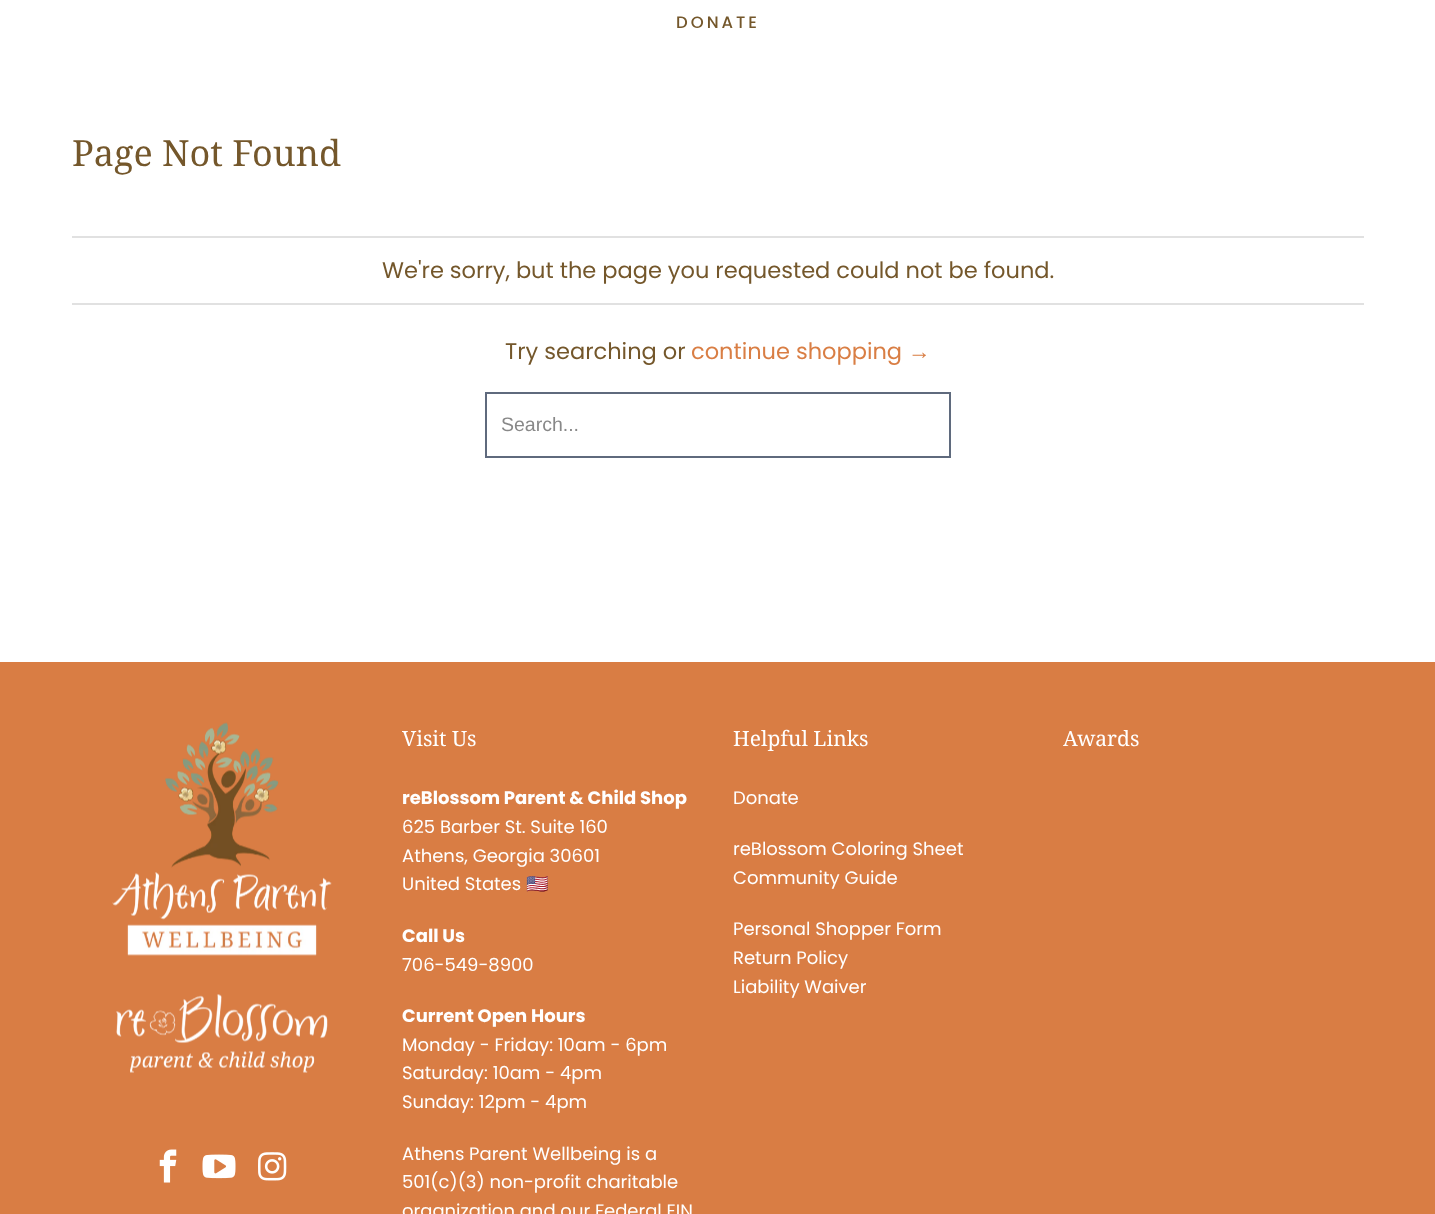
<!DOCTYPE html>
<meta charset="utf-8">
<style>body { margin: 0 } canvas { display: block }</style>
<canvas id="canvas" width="1435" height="1214"></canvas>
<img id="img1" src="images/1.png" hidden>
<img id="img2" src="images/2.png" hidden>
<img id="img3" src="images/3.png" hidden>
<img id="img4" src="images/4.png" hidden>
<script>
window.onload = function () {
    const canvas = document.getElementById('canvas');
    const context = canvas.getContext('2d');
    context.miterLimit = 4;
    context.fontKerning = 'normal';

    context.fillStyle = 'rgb(255, 255, 255)';
    context.fillRect(0, 0, 1435, 1214);
    context.fillStyle = 'rgb(225, 225, 225)';
    context.fillRect(72, 236, 1292, 2);
    context.fillRect(72, 303, 1292, 2);
    context.strokeStyle = 'rgb(95, 106, 125)';
    context.lineWidth = 2;
    context.strokeRect(486, 393, 464, 64);
    context.fillStyle = 'rgb(217, 125, 68)';
    context.fillRect(0, 662, 1435, 552);
    context.drawImage(document.getElementById('img1'), 112, 722, 220, 351);
    context.drawImage(document.getElementById('img2'), 159, 1149, 18, 34);
    context.drawImage(document.getElementById('img3'), 202, 1154, 34, 25);
    context.drawImage(document.getElementById('img4'), 258, 1152, 29, 29);
    context.letterSpacing = '3px';
    context.font = '500 16.5px Poppins';
    context.fillStyle = 'rgb(116, 87, 43)';
    context.fillText('DONATE', 676, 28);
    context.letterSpacing = '0px';
    context.font = '36px Noto Serif';
    context.fillText('Page Not Found', 72, 166);
    context.font = '22.5px Poppins';
    context.fillText('We\'re sorry, but the page you requested could not be found.', 382, 278);
    context.fillText('Try searching or', 505, 359);
    context.fillStyle = 'rgb(217, 126, 68)';
    context.fillText('continue shopping', 691, 359);
    context.font = '22.5px Liberation Sans';
    context.fillText('→', 908, 359);
    context.font = '19.5px Liberation Sans';
    context.fillStyle = 'rgb(136, 136, 136)';
    context.fillText('Search...', 501, 431);
    context.font = '21px Noto Serif';
    context.fillStyle = 'rgb(255, 255, 255)';
    context.fillText('Visit Us', 402, 746);
    context.font = 'bold 18px Poppins';
    context.fillText('reBlossom Parent & Child Shop', 402, 804);
    context.font = '18px Poppins';
    context.fillText('625 Barber St. Suite 160', 402, 833);
    context.fillText('Athens, Georgia 30601', 402, 862);
    context.fillText('United States', 402, 890);
    context.font = '18px Noto Color Emoji';
    context.fillText('🇺🇸', 526, 890);
    context.font = 'bold 18px Poppins';
    context.fillText('Call Us', 402, 942);
    context.font = '18px Poppins';
    context.fillText('706-549-8900', 402, 971);
    context.font = 'bold 18px Poppins';
    context.fillText('Current Open Hours', 402, 1022);
    context.font = '18px Poppins';
    context.fillText('Monday - Friday: 10am - 6pm', 402, 1051);
    context.fillText('Saturday: 10am - 4pm', 402, 1079);
    context.fillText('Sunday: 12pm - 4pm', 402, 1108);
    context.fillText('Athens Parent Wellbeing is a', 402, 1160);
    context.fillText('501(c)(3) non-profit charitable', 402, 1188);
    context.fillText('organization and our Federal EIN', 402, 1217);
    context.font = '21px Noto Serif';
    context.fillText('Helpful Links', 733, 746);
    context.font = '18px Poppins';
    context.fillText('Donate', 733, 804);
    context.fillText('reBlossom Coloring Sheet', 733, 855);
    context.fillText('Community Guide', 733, 884);
    context.fillText('Personal Shopper Form', 733, 935);
    context.fillText('Return Policy', 733, 964);
    context.fillText('Liability Waiver', 733, 993);
    context.font = '21px Noto Serif';
    context.fillText('Awards', 1063, 746);
};
</script>
